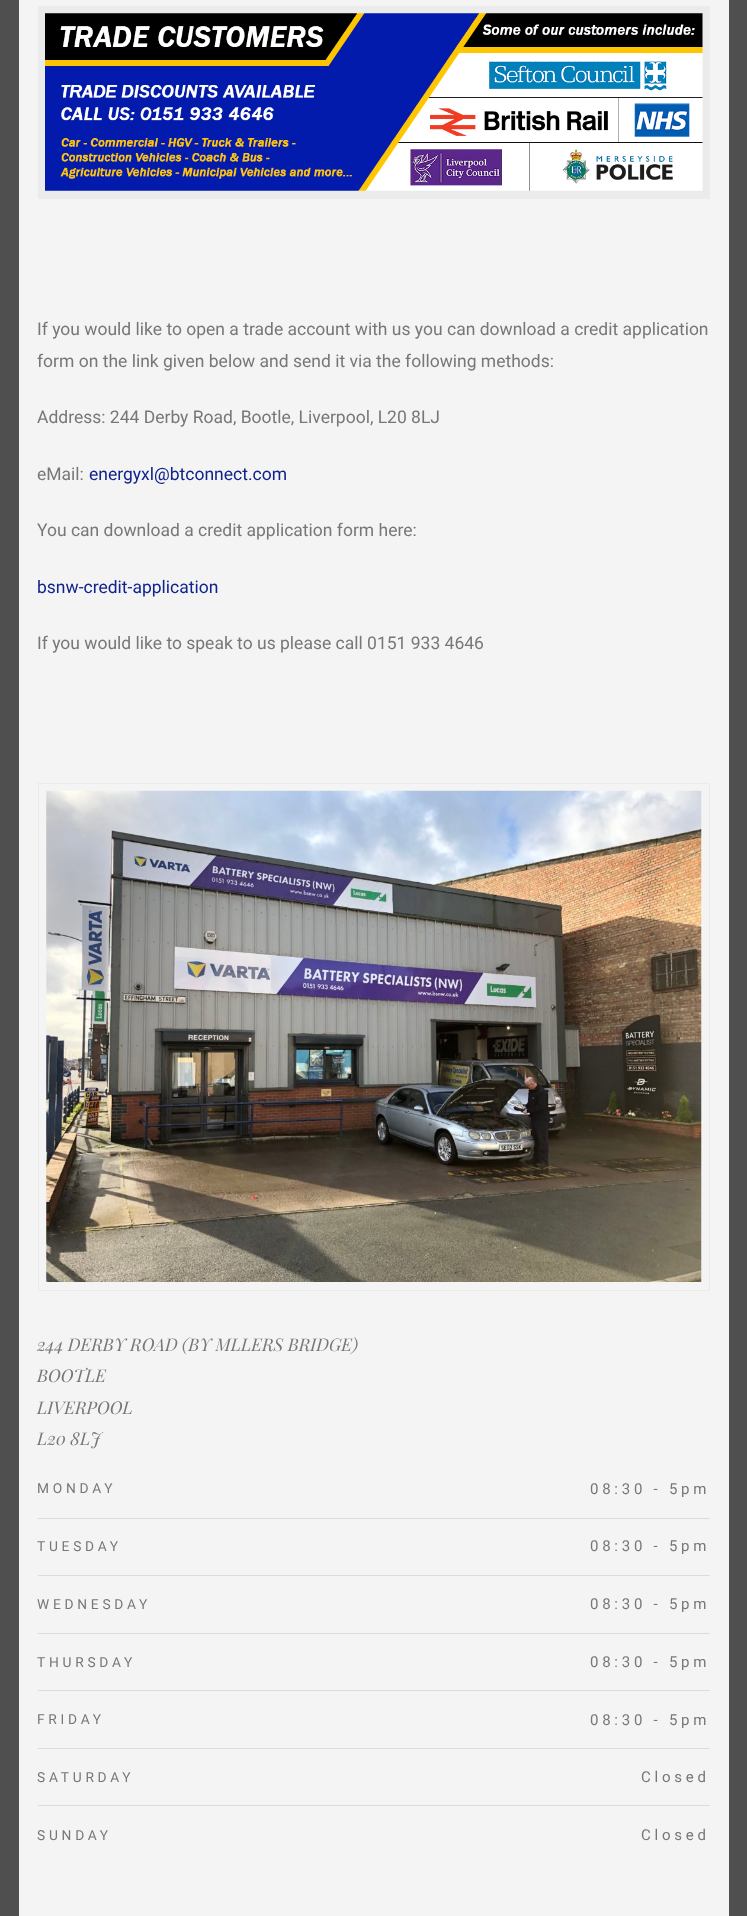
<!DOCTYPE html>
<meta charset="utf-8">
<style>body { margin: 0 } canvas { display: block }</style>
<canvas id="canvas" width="747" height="1916"></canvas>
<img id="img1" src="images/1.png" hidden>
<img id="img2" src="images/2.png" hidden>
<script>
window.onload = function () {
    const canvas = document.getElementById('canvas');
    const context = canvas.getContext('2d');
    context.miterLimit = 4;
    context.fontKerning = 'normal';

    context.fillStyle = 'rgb(79, 79, 79)';
    context.fillRect(0, 0, 747, 1916);
    context.fillStyle = 'rgb(244, 244, 244)';
    context.fillRect(19, 0, 710, 1916);
    context.fillStyle = 'rgb(235, 235, 235)';
    context.fillRect(38, 6, 672, 193);
    context.drawImage(document.getElementById('img1'), 45, 13, 658, 178);
    context.strokeStyle = 'rgb(235, 235, 235)';
    context.strokeRect(38.5, 783.5, 671, 507);
    context.drawImage(document.getElementById('img2'), 46, 790, 656, 492);
    context.fillStyle = 'rgb(220, 220, 220)';
    context.fillRect(38, 1518, 672, 1);
    context.fillRect(38, 1575, 672, 1);
    context.fillRect(38, 1633, 672, 1);
    context.fillRect(38, 1690, 672, 1);
    context.fillRect(38, 1748, 672, 1);
    context.fillRect(38, 1805, 672, 1);
    context.font = '17.5px Roboto';
    context.fillStyle = 'rgb(119, 119, 119)';
    context.fillText('If you would like to open a trade account with us you can download a credit application', 37, 335);
    context.fillText('form on the link given below and send it via the following methods:', 37, 367);
    context.fillText('Address: 244 Derby Road, Bootle, Liverpool, L20 8LJ', 37, 423);
    context.fillText('eMail:', 37, 480);
    context.fillStyle = 'rgb(16, 35, 140)';
    context.fillText('energyxl@btconnect.com', 89, 480);
    context.fillStyle = 'rgb(119, 119, 119)';
    context.fillText('You can download a credit application form here:', 37, 536);
    context.fillStyle = 'rgb(16, 35, 140)';
    context.fillText('bsnw-credit-application', 37, 593);
    context.fillStyle = 'rgb(119, 119, 119)';
    context.fillText('If you would like to speak to us please call 0151 933 4646', 37, 649);
    context.font = 'italic 17.5px Playfair Display';
    context.fillText('244 DERBY ROAD (BY MLLERS BRIDGE)', 37, 1351);
    context.fillText('BOOTLE', 37, 1382);
    context.fillText('LIVERPOOL', 37, 1414);
    context.fillText('L20 8LJ', 37, 1445);
    context.letterSpacing = '3.75px';
    context.font = '13.75px Roboto';
    context.fillText('MONDAY', 37, 1493);
    context.font = '15px Roboto';
    context.fillText('08:30 - 5pm', 590, 1494);
    context.font = '13.75px Roboto';
    context.fillText('TUESDAY', 37, 1551);
    context.font = '15px Roboto';
    context.fillText('08:30 - 5pm', 590, 1551);
    context.font = '13.75px Roboto';
    context.fillText('WEDNESDAY', 37, 1609);
    context.font = '15px Roboto';
    context.fillText('08:30 - 5pm', 590, 1609);
    context.font = '13.75px Roboto';
    context.fillText('THURSDAY', 37, 1667);
    context.font = '15px Roboto';
    context.fillText('08:30 - 5pm', 590, 1667);
    context.font = '13.75px Roboto';
    context.fillText('FRIDAY', 37, 1724);
    context.font = '15px Roboto';
    context.fillText('08:30 - 5pm', 590, 1725);
    context.font = '13.75px Roboto';
    context.fillText('SATURDAY', 37, 1782);
    context.font = '15px Roboto';
    context.fillText('Closed', 641, 1782);
    context.font = '13.75px Roboto';
    context.fillText('SUNDAY', 37, 1840);
    context.font = '15px Roboto';
    context.fillText('Closed', 641, 1840);
};
</script>
